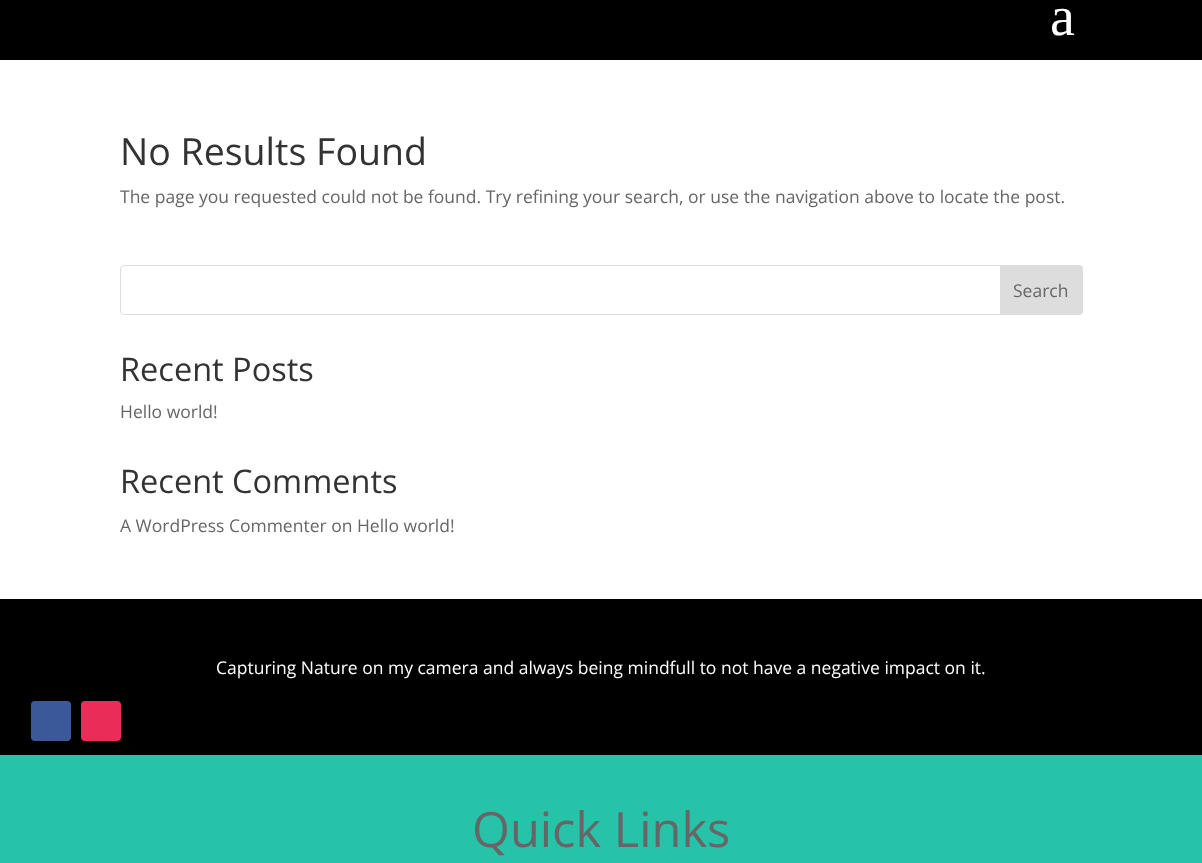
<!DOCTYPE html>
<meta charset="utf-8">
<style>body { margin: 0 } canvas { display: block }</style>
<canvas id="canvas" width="1202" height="863"></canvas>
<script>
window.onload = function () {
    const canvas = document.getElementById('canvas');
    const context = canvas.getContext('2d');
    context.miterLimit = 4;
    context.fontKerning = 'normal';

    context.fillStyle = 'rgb(255, 255, 255)';
    context.fillRect(0, 0, 1202, 863);
    context.fillStyle = 'rgb(0, 0, 0)';
    context.fillRect(0, 0, 1202, 60);
    context.beginPath();
    context.roundRect(120.5, 265.5, 962, 49, 3.5);
    context.strokeStyle = 'rgb(221, 221, 221)';
    context.stroke();
    context.fillStyle = 'rgb(221, 221, 221)';
    context.beginPath();
    context.roundRect(1000.5, 265.5, 82, 49, [0, 3.5, 3.5, 0]);
    context.fill();
    context.stroke();
    context.fillStyle = 'rgb(0, 0, 0)';
    context.fillRect(0, 599, 1202, 156);
    context.fillStyle = 'rgb(59, 89, 152)';
    context.beginPath();
    context.roundRect(31, 701, 40, 40, 4);
    context.fill();
    context.fillStyle = 'rgb(234, 44, 89)';
    context.beginPath();
    context.roundRect(81, 701, 40, 40, 4);
    context.fill();
    context.fillStyle = 'rgb(39, 195, 169)';
    context.fillRect(0, 755, 1202, 108);
    context.font = '56px Liberation Serif';
    context.fillStyle = 'rgb(255, 255, 255)';
    context.fillText('a', 1050, 35);
    context.font = '37.5px Open Sans';
    context.fillStyle = 'rgb(51, 51, 51)';
    context.fillText('No Results Found', 120, 165);
    context.font = '17.5px Open Sans';
    context.fillStyle = 'rgb(102, 102, 102)';
    context.fillText('The page you requested could not be found. Try refining your search, or use the navigation above to locate the post.', 120, 203);
    context.fillText('Search', 1013, 297);
    context.font = '32.5px Open Sans';
    context.fillStyle = 'rgb(51, 51, 51)';
    context.fillText('Recent Posts', 120, 381);
    context.font = '17.5px Open Sans';
    context.fillStyle = 'rgb(102, 102, 102)';
    context.fillText('Hello world!', 120, 418);
    context.font = '32.5px Open Sans';
    context.fillStyle = 'rgb(51, 51, 51)';
    context.fillText('Recent Comments', 120, 493);
    context.font = '17.5px Open Sans';
    context.fillStyle = 'rgb(102, 102, 102)';
    context.fillText('A WordPress Commenter on Hello world!', 120, 532);
    context.fillStyle = 'rgb(255, 255, 255)';
    context.fillText('Capturing Nature on my camera and always being mindfull to not have a negative impact on it.', 216, 674);
    context.font = '48.75px Open Sans';
    context.fillStyle = 'rgb(102, 102, 102)';
    context.fillText('Quick Links', 472, 847);
};
</script>
